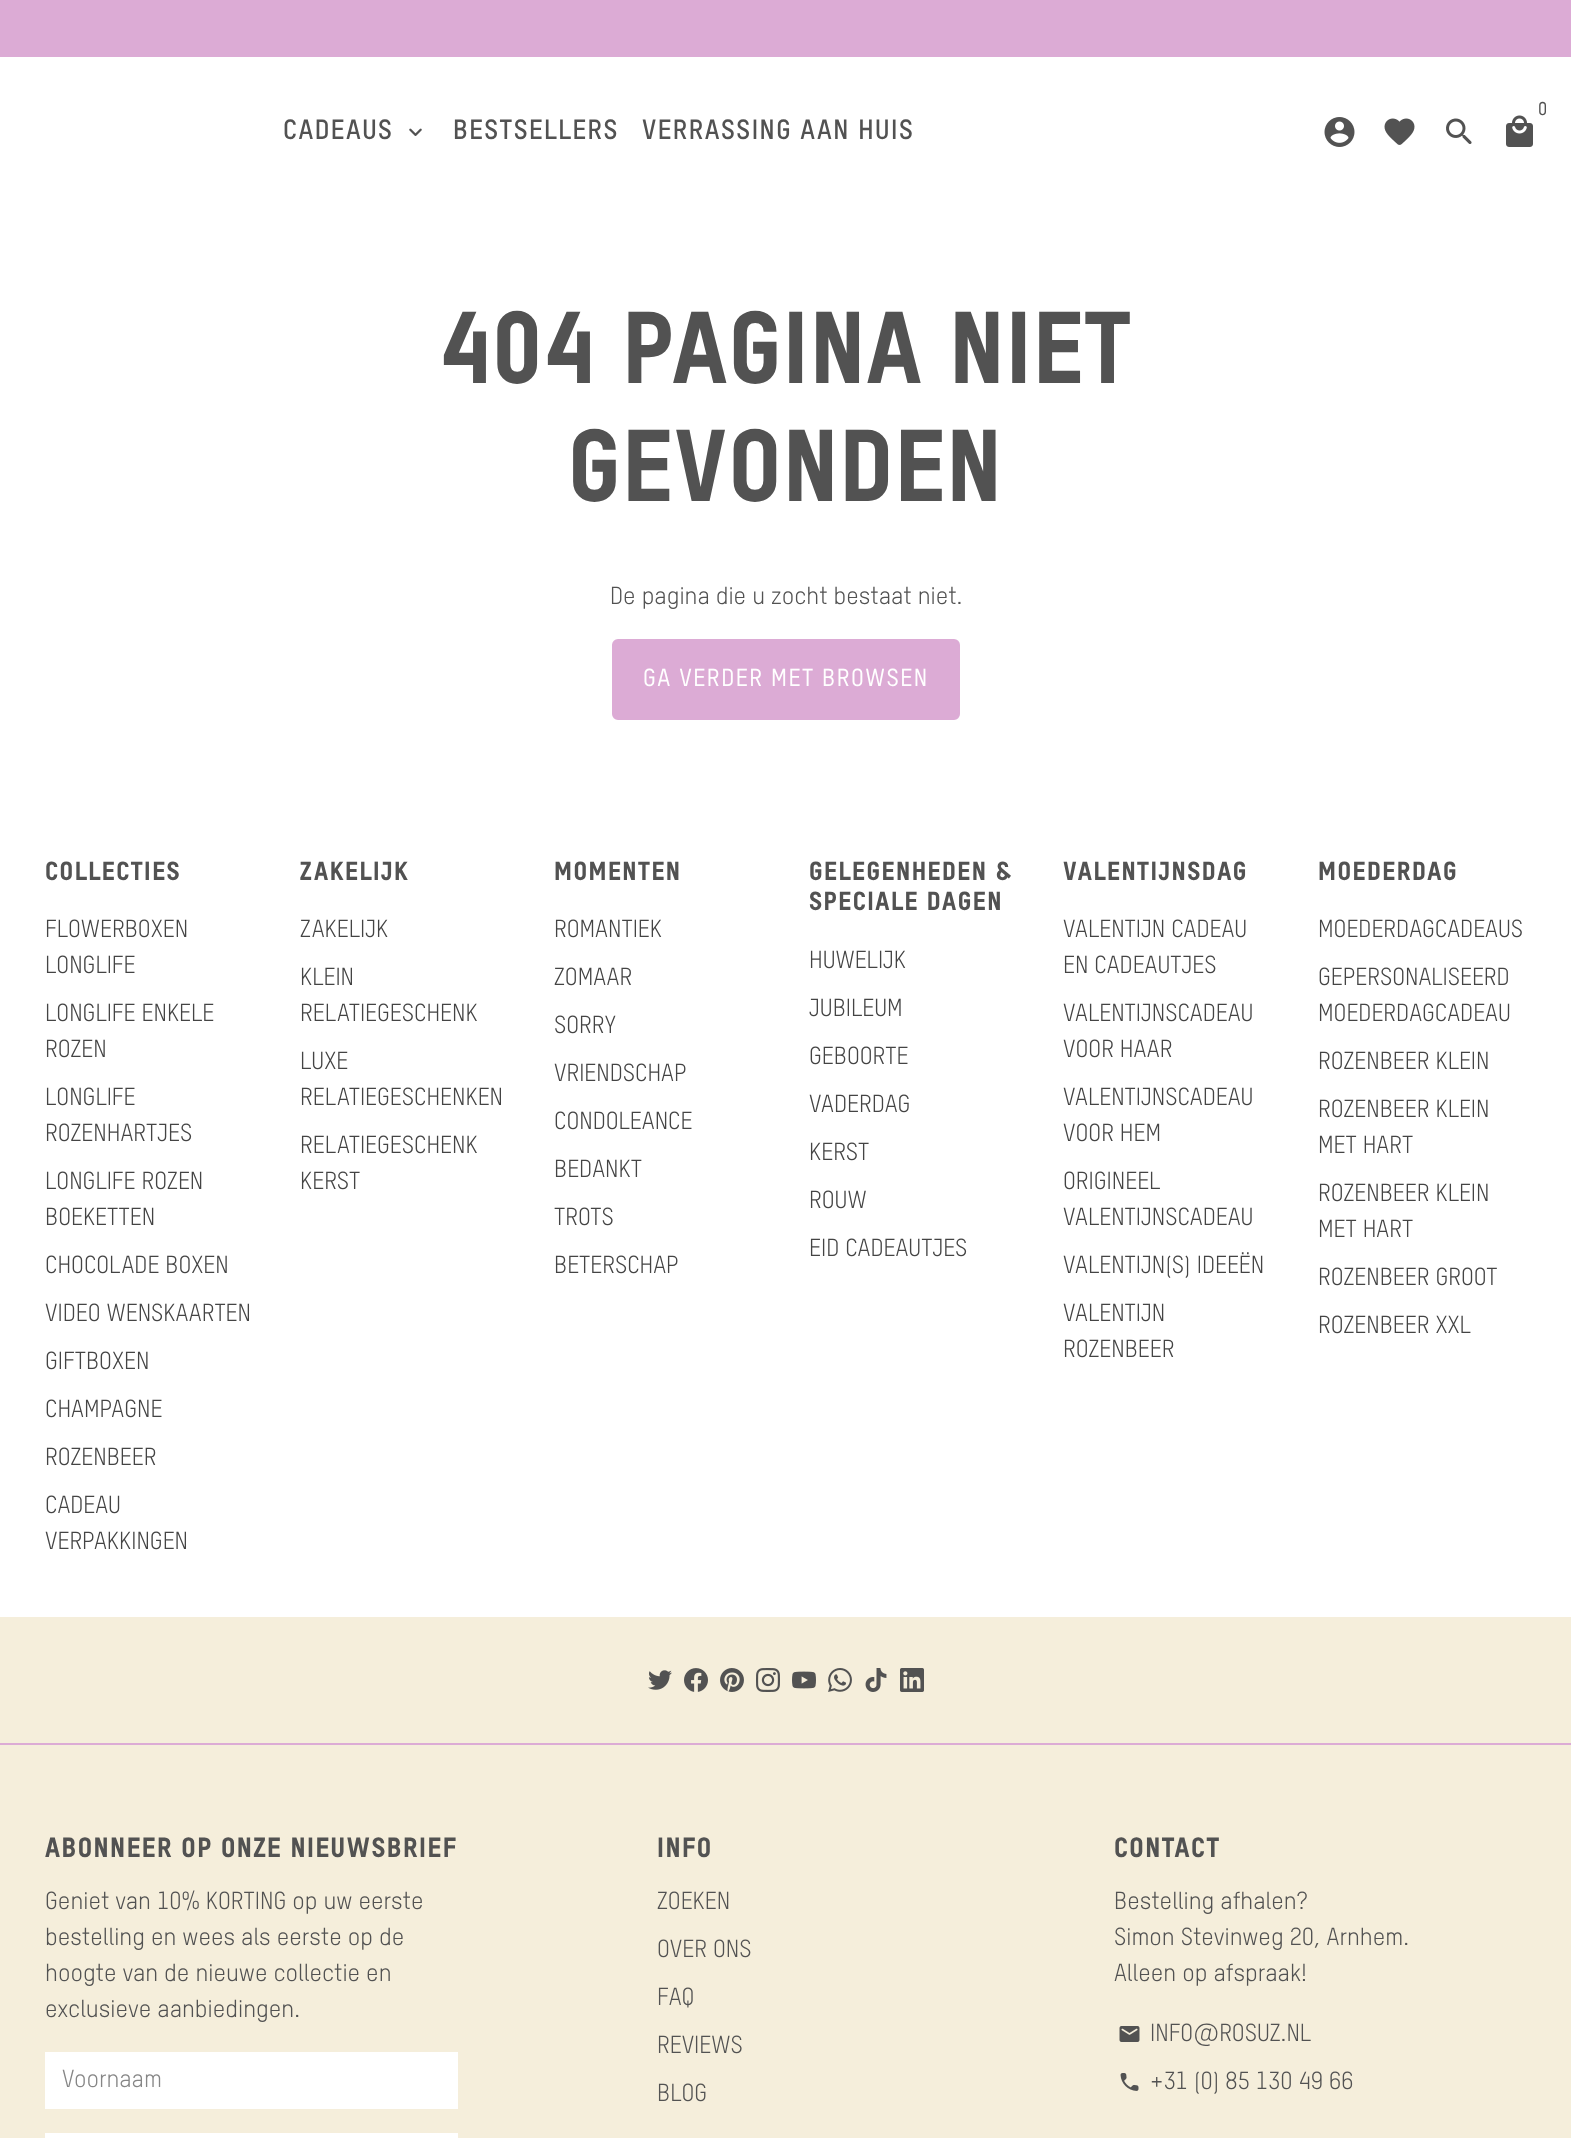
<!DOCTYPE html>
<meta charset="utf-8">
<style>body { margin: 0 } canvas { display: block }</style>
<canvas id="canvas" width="1571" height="2138"></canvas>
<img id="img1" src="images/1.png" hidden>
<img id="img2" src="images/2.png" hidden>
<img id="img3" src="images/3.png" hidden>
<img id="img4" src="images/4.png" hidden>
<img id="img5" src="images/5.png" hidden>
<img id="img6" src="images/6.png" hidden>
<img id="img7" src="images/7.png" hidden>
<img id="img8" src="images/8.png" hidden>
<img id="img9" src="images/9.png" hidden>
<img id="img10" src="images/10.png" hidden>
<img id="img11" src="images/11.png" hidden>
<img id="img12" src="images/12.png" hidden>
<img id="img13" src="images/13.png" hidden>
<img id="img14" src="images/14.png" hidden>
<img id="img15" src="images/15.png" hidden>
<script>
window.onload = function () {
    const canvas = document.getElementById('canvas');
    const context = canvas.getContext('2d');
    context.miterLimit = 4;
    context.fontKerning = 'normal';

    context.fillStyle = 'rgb(255, 255, 255)';
    context.fillRect(0, 0, 1571, 2138);
    context.fillStyle = 'rgb(220, 171, 213)';
    context.fillRect(0, 0, 1571, 57);
    context.drawImage(document.getElementById('img1'), 1506, 115, 27, 32);
    context.drawImage(document.getElementById('img2'), 1324, 117, 31, 30);
    context.drawImage(document.getElementById('img3'), 1384, 118, 31, 27);
    context.drawImage(document.getElementById('img4'), 1446, 118, 26, 26);
    context.drawImage(document.getElementById('img5'), 409, 128, 13, 8);
    context.beginPath();
    context.roundRect(613, 640, 346, 79, 5);
    context.fill();
    context.strokeStyle = 'rgb(220, 171, 213)';
    context.lineWidth = 2;
    context.stroke();
    context.fillStyle = 'rgb(245, 238, 219)';
    context.fillRect(0, 1617, 1571, 521);
    context.fillStyle = 'rgb(220, 171, 213)';
    context.fillRect(0, 1743, 1571, 2);
    context.drawImage(document.getElementById('img6'), 648, 1670, 24, 20);
    context.drawImage(document.getElementById('img7'), 684, 1668, 24, 24);
    context.drawImage(document.getElementById('img8'), 720, 1668, 24, 24);
    context.drawImage(document.getElementById('img9'), 756, 1668, 24, 24);
    context.drawImage(document.getElementById('img10'), 792, 1671, 24, 18);
    context.drawImage(document.getElementById('img11'), 828, 1668, 24, 24);
    context.drawImage(document.getElementById('img12'), 865, 1668, 22, 24);
    context.drawImage(document.getElementById('img13'), 900, 1668, 24, 24);
    context.fillStyle = 'rgb(255, 255, 255)';
    context.fillRect(45, 2052, 413, 57);
    context.fillRect(45, 2133, 413, 5);
    context.drawImage(document.getElementById('img14'), 1119, 2026, 21, 16);
    context.drawImage(document.getElementById('img15'), 1120, 2073, 19, 18);
    context.font = '500 18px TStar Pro';
    context.fillStyle = 'rgb(82, 82, 82)';
    context.fillText('0', 1538, 115);
    context.letterSpacing = '1.5px';
    context.font = 'bold 27px TStar Pro';
    context.fillText('CADEAUS', 283, 139);
    context.fillText('BESTSELLERS', 453, 139);
    context.fillText('VERRASSING AAN HUIS', 642, 139);
    context.font = '900 99px TStar Pro';
    context.fillText('404 PAGINA NIET', 440, 383);
    context.fillText('GEVONDEN', 568, 501);
    context.letterSpacing = '0px';
    context.font = '24px TStar Pro';
    context.fillText('De pagina die u zocht bestaat niet.', 610, 604);
    context.letterSpacing = '1.5px';
    context.font = '500 24px TStar Pro';
    context.fillStyle = 'rgb(255, 255, 255)';
    context.fillText('GA VERDER MET BROWSEN', 643, 686);
    context.font = '900 25.5px TStar Pro';
    context.fillStyle = 'rgb(82, 82, 82)';
    context.fillText('COLLECTIES', 45, 880);
    context.letterSpacing = '0px';
    context.font = '24px TStar Pro';
    context.fillStyle = 'rgb(68, 68, 68)';
    context.fillText('FLOWERBOXEN', 45, 937);
    context.fillText('LONGLIFE', 45, 973);
    context.fillText('LONGLIFE ENKELE', 45, 1021);
    context.fillText('ROZEN', 45, 1057);
    context.fillText('LONGLIFE', 45, 1105);
    context.fillText('ROZENHARTJES', 45, 1141);
    context.fillText('LONGLIFE ROZEN', 45, 1189);
    context.fillText('BOEKETTEN', 45, 1225);
    context.fillText('CHOCOLADE BOXEN', 45, 1273);
    context.fillText('VIDEO WENSKAARTEN', 45, 1321);
    context.fillText('GIFTBOXEN', 45, 1369);
    context.fillText('CHAMPAGNE', 45, 1417);
    context.fillText('ROZENBEER', 45, 1465);
    context.fillText('CADEAU', 45, 1513);
    context.fillText('VERPAKKINGEN', 45, 1549);
    context.letterSpacing = '1.5px';
    context.font = '900 25.5px TStar Pro';
    context.fillStyle = 'rgb(82, 82, 82)';
    context.fillText('ZAKELIJK', 300, 880);
    context.letterSpacing = '0px';
    context.font = '24px TStar Pro';
    context.fillStyle = 'rgb(68, 68, 68)';
    context.fillText('ZAKELIJK', 300, 937);
    context.fillText('KLEIN', 300, 985);
    context.fillText('RELATIEGESCHENK', 300, 1021);
    context.fillText('LUXE', 300, 1069);
    context.fillText('RELATIEGESCHENKEN', 300, 1105);
    context.fillText('RELATIEGESCHENK', 300, 1153);
    context.fillText('KERST', 300, 1189);
    context.letterSpacing = '1.5px';
    context.font = '900 25.5px TStar Pro';
    context.fillStyle = 'rgb(82, 82, 82)';
    context.fillText('MOMENTEN', 554, 880);
    context.letterSpacing = '0px';
    context.font = '24px TStar Pro';
    context.fillStyle = 'rgb(68, 68, 68)';
    context.fillText('ROMANTIEK', 554, 937);
    context.fillText('ZOMAAR', 554, 985);
    context.fillText('SORRY', 554, 1033);
    context.fillText('VRIENDSCHAP', 554, 1081);
    context.fillText('CONDOLEANCE', 554, 1129);
    context.fillText('BEDANKT', 554, 1177);
    context.fillText('TROTS', 554, 1225);
    context.fillText('BETERSCHAP', 554, 1273);
    context.letterSpacing = '1.5px';
    context.font = '900 25.5px TStar Pro';
    context.fillStyle = 'rgb(82, 82, 82)';
    context.fillText('GELEGENHEDEN &', 809, 880);
    context.fillText('SPECIALE DAGEN', 809, 910);
    context.letterSpacing = '0px';
    context.font = '24px TStar Pro';
    context.fillStyle = 'rgb(68, 68, 68)';
    context.fillText('HUWELIJK', 809, 968);
    context.fillText('JUBILEUM', 809, 1016);
    context.fillText('GEBOORTE', 809, 1064);
    context.fillText('VADERDAG', 809, 1112);
    context.fillText('KERST', 809, 1160);
    context.fillText('ROUW', 809, 1208);
    context.fillText('EID CADEAUTJES', 809, 1256);
    context.letterSpacing = '1.5px';
    context.font = '900 25.5px TStar Pro';
    context.fillStyle = 'rgb(82, 82, 82)';
    context.fillText('VALENTIJNSDAG', 1063, 880);
    context.letterSpacing = '0px';
    context.font = '24px TStar Pro';
    context.fillStyle = 'rgb(68, 68, 68)';
    context.fillText('VALENTIJN CADEAU', 1063, 937);
    context.fillText('EN CADEAUTJES', 1063, 973);
    context.fillText('VALENTIJNSCADEAU', 1063, 1021);
    context.fillText('VOOR HAAR', 1063, 1057);
    context.fillText('VALENTIJNSCADEAU', 1063, 1105);
    context.fillText('VOOR HEM', 1063, 1141);
    context.fillText('ORIGINEEL', 1063, 1189);
    context.fillText('VALENTIJNSCADEAU', 1063, 1225);
    context.fillText('VALENTIJN(S) IDEEËN', 1063, 1273);
    context.fillText('VALENTIJN', 1063, 1321);
    context.fillText('ROZENBEER', 1063, 1357);
    context.letterSpacing = '1.5px';
    context.font = '900 25.5px TStar Pro';
    context.fillStyle = 'rgb(82, 82, 82)';
    context.fillText('MOEDERDAG', 1318, 880);
    context.letterSpacing = '0px';
    context.font = '24px TStar Pro';
    context.fillStyle = 'rgb(68, 68, 68)';
    context.fillText('MOEDERDAGCADEAUS', 1318, 937);
    context.fillText('GEPERSONALISEERD', 1318, 985);
    context.fillText('MOEDERDAGCADEAU', 1318, 1021);
    context.fillText('ROZENBEER KLEIN', 1318, 1069);
    context.fillText('ROZENBEER KLEIN', 1318, 1117);
    context.fillText('MET HART', 1318, 1153);
    context.fillText('ROZENBEER KLEIN', 1318, 1201);
    context.fillText('MET HART', 1318, 1237);
    context.fillText('ROZENBEER GROOT', 1318, 1285);
    context.fillText('ROZENBEER XXL', 1318, 1333);
    context.letterSpacing = '1.5px';
    context.font = '900 27px TStar Pro';
    context.fillStyle = 'rgb(82, 82, 82)';
    context.fillText('ABONNEER OP ONZE NIEUWSBRIEF', 45, 1857);
    context.letterSpacing = '0px';
    context.font = '24px TStar Pro';
    context.fillText('Geniet van 10% KORTING op uw eerste', 45, 1909);
    context.fillText('bestelling en wees als eerste op de', 45, 1945);
    context.fillText('hoogte van de nieuwe collectie en', 45, 1981);
    context.fillText('exclusieve aanbiedingen.', 45, 2017);
    context.fillStyle = 'rgb(134, 134, 134)';
    context.fillText('Voornaam', 62, 2087);
    context.letterSpacing = '1.5px';
    context.font = '900 27px TStar Pro';
    context.fillStyle = 'rgb(82, 82, 82)';
    context.fillText('INFO', 657, 1857);
    context.letterSpacing = '0px';
    context.font = '24px TStar Pro';
    context.fillText('ZOEKEN', 657, 1909);
    context.fillText('OVER ONS', 657, 1957);
    context.fillText('FAQ', 657, 2005);
    context.fillText('REVIEWS', 657, 2053);
    context.fillText('BLOG', 657, 2101);
    context.letterSpacing = '1.5px';
    context.font = '900 27px TStar Pro';
    context.fillText('CONTACT', 1114, 1857);
    context.letterSpacing = '0px';
    context.font = '24px TStar Pro';
    context.fillText('Bestelling afhalen?', 1114, 1909);
    context.fillText('Simon Stevinweg 20, Arnhem.', 1114, 1945);
    context.fillText('Alleen op afspraak!', 1114, 1981);
    context.fillText('INFO@ROSUZ.NL', 1150, 2041);
    context.fillText('+31 (0) 85 130 49 66', 1150, 2089);
};
</script>
